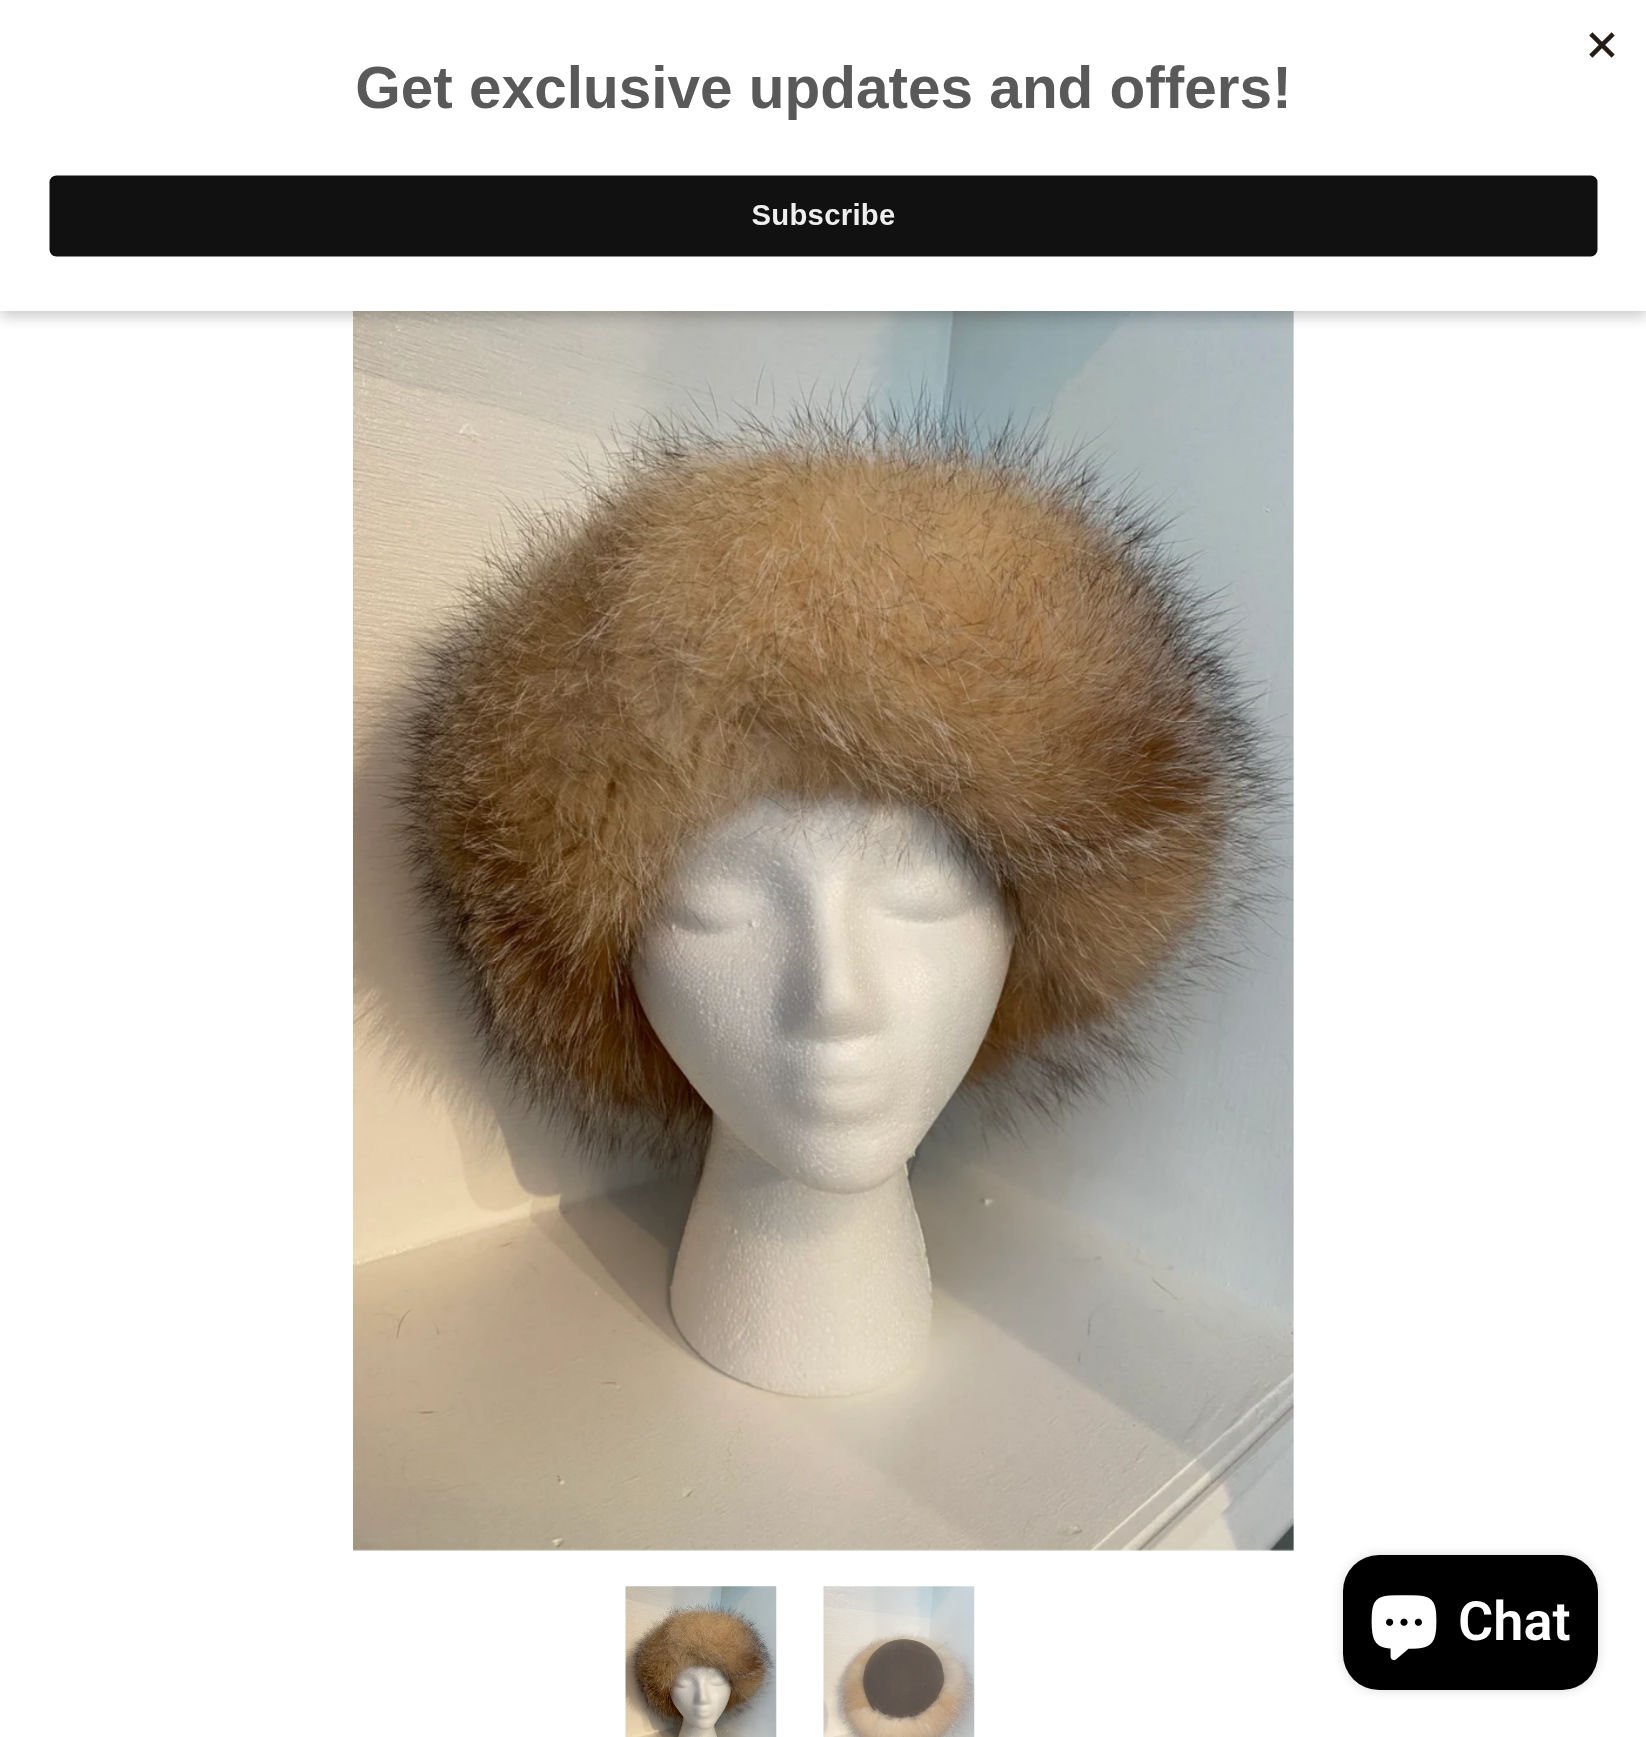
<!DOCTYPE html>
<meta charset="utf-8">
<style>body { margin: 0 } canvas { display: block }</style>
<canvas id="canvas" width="1646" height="1737"></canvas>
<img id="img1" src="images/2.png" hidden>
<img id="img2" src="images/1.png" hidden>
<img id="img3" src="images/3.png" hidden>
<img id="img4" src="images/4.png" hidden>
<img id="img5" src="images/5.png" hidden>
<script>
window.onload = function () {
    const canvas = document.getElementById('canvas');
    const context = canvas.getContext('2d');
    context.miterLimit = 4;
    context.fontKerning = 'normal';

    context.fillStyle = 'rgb(255, 255, 255)';
    context.fillRect(0, 0, 1646, 1737);
    context.drawImage(document.getElementById('img1'), 353, 311, 941, 1240);
    context.fillStyle = 'rgba(0, 0, 0, 0.2)';
    context.filter = 'blur(7px)';
    context.beginPath();
    context.rect(0, 7, 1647, 310);
    context.fill();
    context.filter = 'none';
    context.fillStyle = 'rgb(255, 255, 255)';
    context.fillRect(0, 0, 1646, 311);
    context.drawImage(document.getElementById('img2'), 49, 32, 1566, 225);
    context.drawImage(document.getElementById('img3'), 625, 1586, 152, 151);
    context.drawImage(document.getElementById('img4'), 823, 1586, 152, 151);
    context.fillStyle = 'rgba(0, 0, 0, 0.15)';
    context.filter = 'blur(5.5px)';
    context.beginPath();
    context.roundRect(1343, 1555, 255, 135, 36);
    context.fill();
    context.filter = 'none';
    context.fillStyle = 'rgb(0, 0, 0)';
    context.beginPath();
    context.roundRect(1343, 1555, 255, 135, 36);
    context.fill();
    context.drawImage(document.getElementById('img5'), 1371, 1595, 66, 65);
    context.font = '600 54px Roboto';
    context.fillStyle = 'rgb(255, 255, 255)';
    context.fillText('Chat', 1458, 1640);
};
</script>
